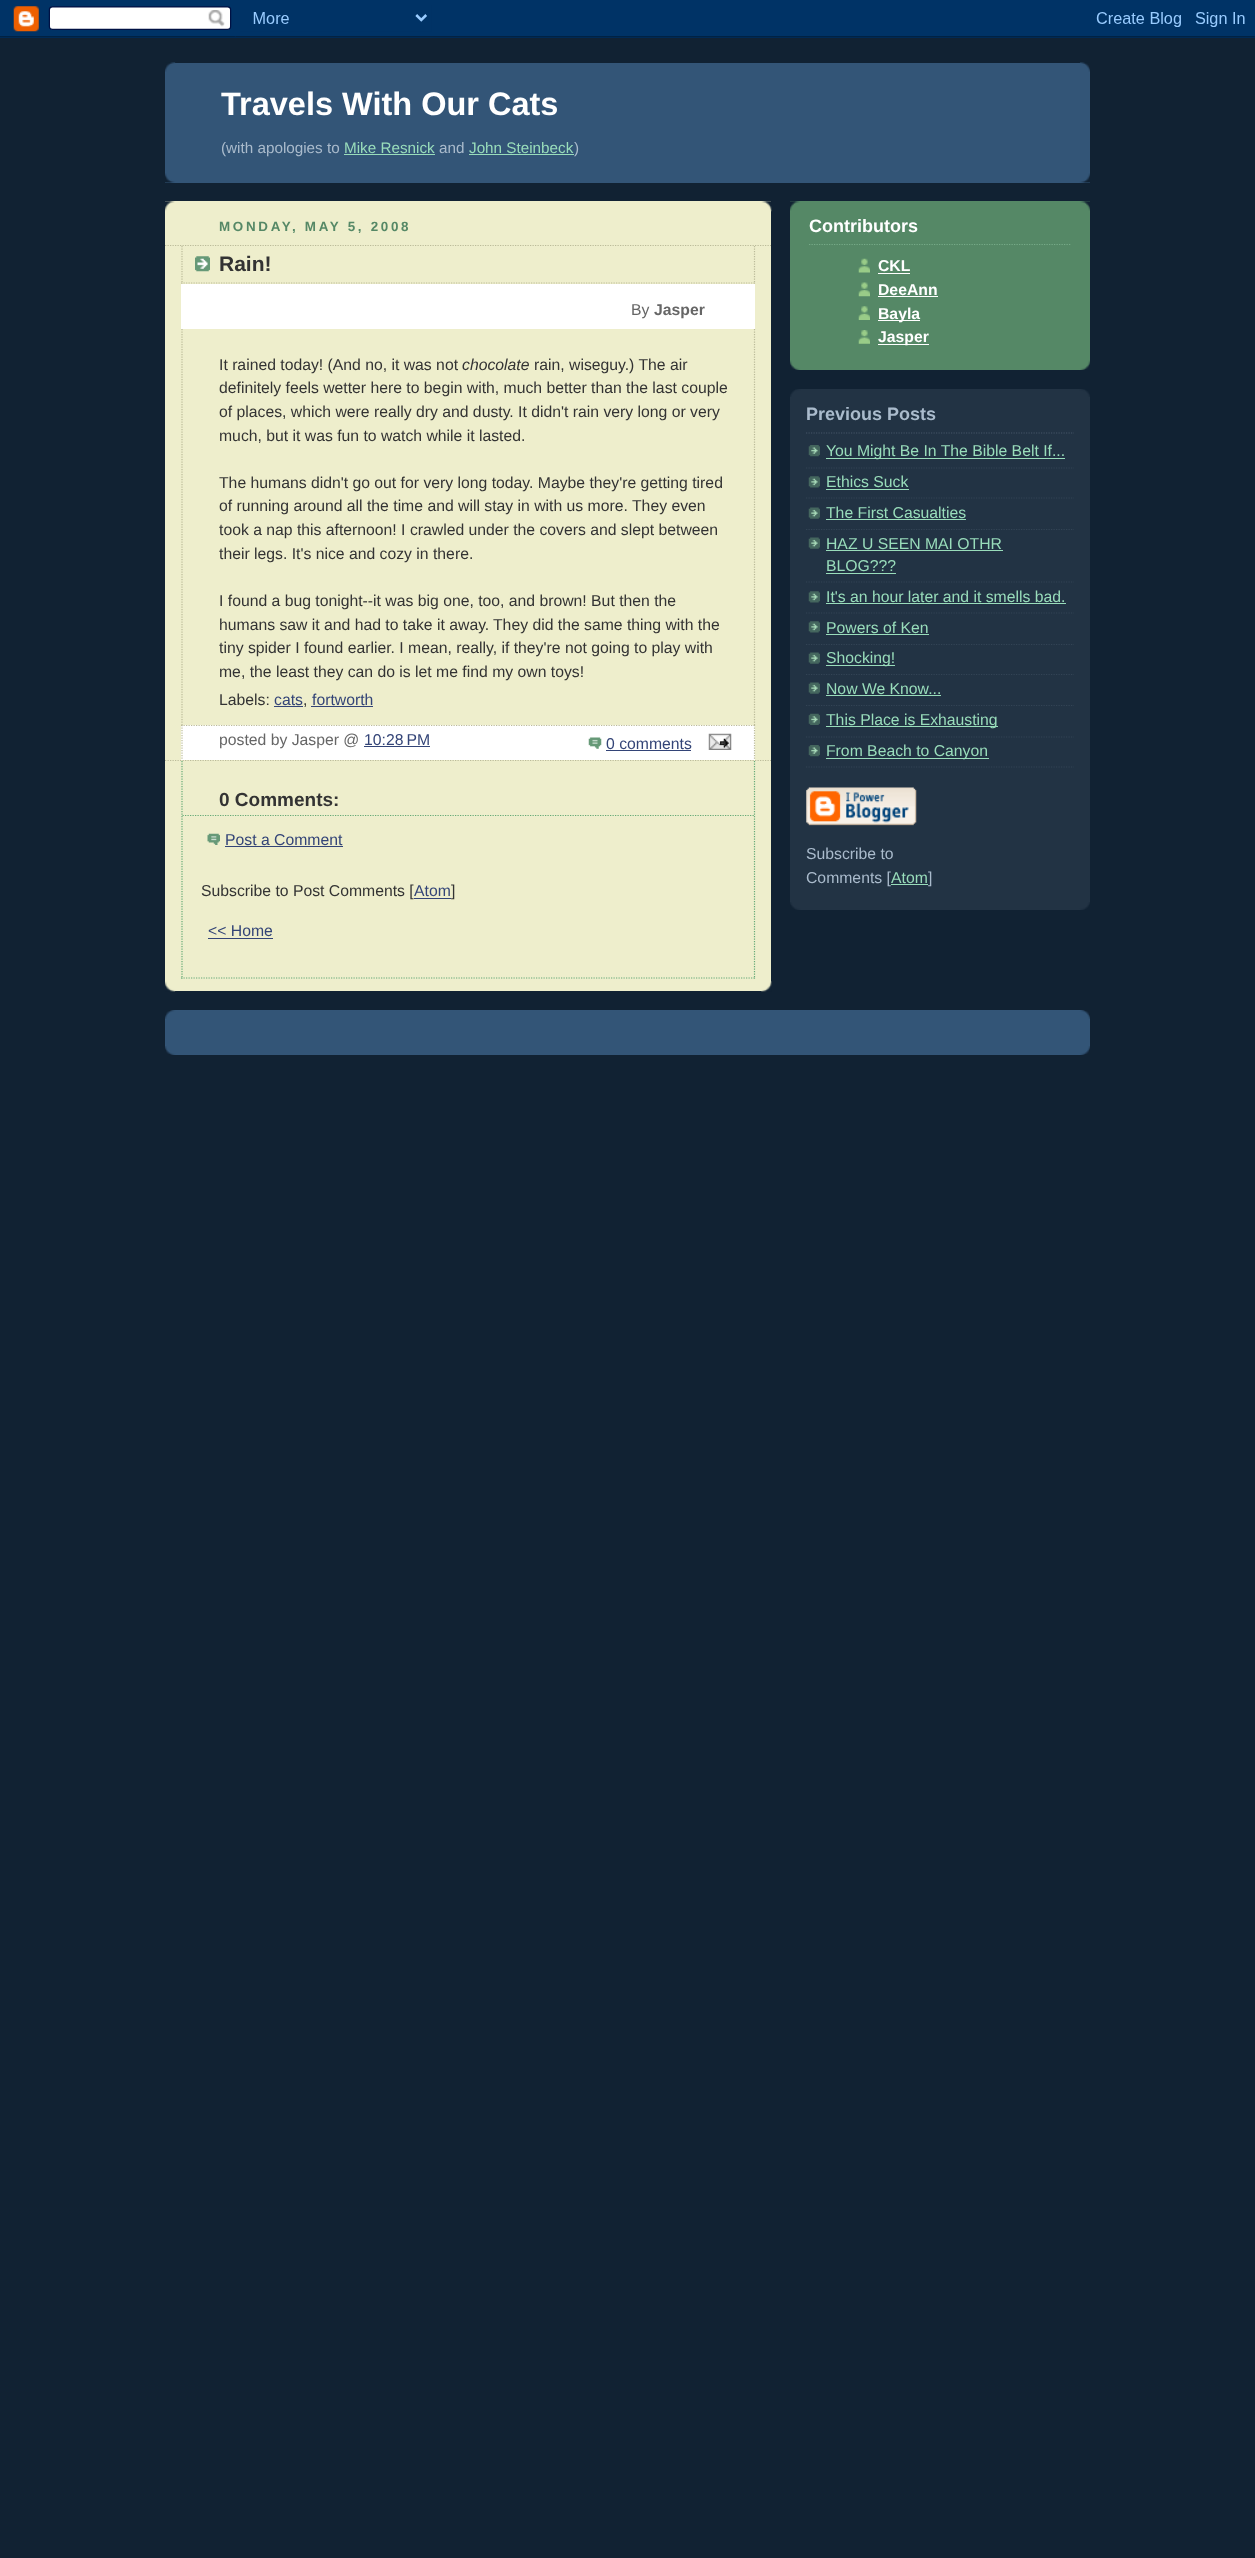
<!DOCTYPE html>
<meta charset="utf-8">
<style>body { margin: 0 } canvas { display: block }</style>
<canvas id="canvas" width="1255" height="2558"></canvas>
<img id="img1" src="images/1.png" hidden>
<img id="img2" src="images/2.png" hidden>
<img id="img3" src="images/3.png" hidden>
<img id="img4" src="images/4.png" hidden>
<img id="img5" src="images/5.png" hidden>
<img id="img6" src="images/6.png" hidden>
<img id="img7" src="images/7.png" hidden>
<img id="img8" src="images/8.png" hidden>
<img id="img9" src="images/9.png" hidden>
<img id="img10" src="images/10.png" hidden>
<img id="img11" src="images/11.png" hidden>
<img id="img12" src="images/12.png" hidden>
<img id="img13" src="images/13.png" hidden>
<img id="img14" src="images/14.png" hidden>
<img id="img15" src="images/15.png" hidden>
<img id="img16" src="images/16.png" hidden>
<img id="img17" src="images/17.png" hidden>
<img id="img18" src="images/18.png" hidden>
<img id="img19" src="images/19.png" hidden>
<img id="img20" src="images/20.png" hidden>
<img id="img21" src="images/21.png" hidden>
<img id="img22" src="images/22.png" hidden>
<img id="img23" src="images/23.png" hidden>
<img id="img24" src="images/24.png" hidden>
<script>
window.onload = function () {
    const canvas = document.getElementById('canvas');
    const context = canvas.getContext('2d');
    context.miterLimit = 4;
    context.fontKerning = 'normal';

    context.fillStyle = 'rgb(17, 34, 51)';
    context.fillRect(0, 0, 1255, 2558);
    context.drawImage(document.getElementById('img1'), 0, 0, 1255, 38);
    context.fillStyle = 'rgb(51, 85, 119)';
    context.fillRect(165, 63, 925, 120);
    context.drawImage(document.getElementById('img2'), 165, 173, 925, 10);
    context.drawImage(document.getElementById('img3'), 165, 62, 925, 10);
    context.fillStyle = 'rgb(153, 221, 187)';
    context.fillRect(344, 154, 91, 1);
    context.fillRect(469, 154, 105, 1);
    context.fillStyle = 'rgb(238, 238, 204)';
    context.fillRect(165, 201, 606, 790);
    context.drawImage(document.getElementById('img4'), 165, 981, 607, 11);
    context.drawImage(document.getElementById('img5'), 165, 201, 607, 11);
    context.beginPath();
    context.moveTo(165, 245.5);
    context.lineTo(771, 245.5);
    context.strokeStyle = 'rgb(187, 187, 153)';
    context.lineWidth = 1.2;
    context.setLineDash([1.25, 1.25]);
    context.stroke();
    context.beginPath();
    context.moveTo(165, 760.5);
    context.lineTo(771, 760.5);
    context.stroke();
    context.drawImage(document.getElementById('img6'), 195, 256, 15, 16);
    context.beginPath();
    context.moveTo(754.5, 246);
    context.lineTo(754.5, 284);
    context.stroke();
    context.beginPath();
    context.moveTo(181, 283);
    context.lineTo(755, 283);
    context.stroke();
    context.beginPath();
    context.moveTo(182, 246);
    context.lineTo(182, 284);
    context.stroke();
    context.fillStyle = 'rgb(255, 255, 255)';
    context.fillRect(181, 284, 574, 45);
    context.beginPath();
    context.moveTo(754.5, 329);
    context.lineTo(754.5, 725);
    context.stroke();
    context.beginPath();
    context.moveTo(182, 329);
    context.lineTo(182, 725);
    context.stroke();
    context.fillStyle = 'rgb(51, 68, 119)';
    context.fillRect(274, 706, 29, 1);
    context.fillRect(311, 706, 62, 1);
    context.fillStyle = 'rgb(255, 255, 255)';
    context.fillRect(181, 725, 574, 35);
    context.beginPath();
    context.moveTo(181, 725.5);
    context.lineTo(755, 725.5);
    context.stroke();
    context.beginPath();
    context.moveTo(754.5, 725);
    context.lineTo(754.5, 760);
    context.stroke();
    context.beginPath();
    context.moveTo(182, 725);
    context.lineTo(182, 760);
    context.stroke();
    context.fillStyle = 'rgb(51, 68, 119)';
    context.fillRect(364, 746, 66, 1);
    context.drawImage(document.getElementById('img7'), 588, 737, 14, 12);
    context.fillRect(606, 750, 85, 1);
    context.drawImage(document.getElementById('img8'), 708, 733, 24, 17);
    context.beginPath();
    context.moveTo(754.5, 761);
    context.lineTo(754.5, 979);
    context.strokeStyle = 'rgb(102, 170, 119)';
    context.stroke();
    context.beginPath();
    context.moveTo(181, 978);
    context.lineTo(755, 978);
    context.stroke();
    context.beginPath();
    context.moveTo(182, 761);
    context.lineTo(182, 979);
    context.stroke();
    context.beginPath();
    context.moveTo(182.5, 815.5);
    context.lineTo(754, 815.5);
    context.stroke();
    context.drawImage(document.getElementById('img9'), 207, 833, 13, 12);
    context.fillRect(225, 846, 118, 1);
    context.fillRect(208, 938, 65, 1);
    context.fillStyle = 'rgb(85, 136, 102)';
    context.fillRect(790, 201, 300, 169);
    context.drawImage(document.getElementById('img10'), 790, 360, 300, 10);
    context.drawImage(document.getElementById('img11'), 790, 201, 300, 10);
    context.beginPath();
    context.moveTo(809, 244.5);
    context.lineTo(1071, 244.5);
    context.strokeStyle = 'rgb(119, 170, 136)';
    context.stroke();
    context.drawImage(document.getElementById('img12'), 858, 258, 12, 15);
    context.fillStyle = 'rgb(255, 255, 255)';
    context.fillRect(878, 273, 32, 1);
    context.drawImage(document.getElementById('img13'), 858, 282, 12, 15);
    context.fillRect(878, 296, 60, 1);
    context.drawImage(document.getElementById('img14'), 858, 306, 12, 14);
    context.fillRect(878, 320, 42, 1);
    context.drawImage(document.getElementById('img15'), 858, 330, 12, 14);
    context.fillRect(878, 344, 51, 1);
    context.fillStyle = 'rgb(34, 51, 68)';
    context.fillRect(790, 389, 300, 521);
    context.drawImage(document.getElementById('img16'), 790, 389, 300, 8);
    context.drawImage(document.getElementById('img17'), 790, 902, 300, 8);
    context.beginPath();
    context.moveTo(806, 433);
    context.lineTo(1074, 433);
    context.strokeStyle = 'rgb(68, 85, 102)';
    context.stroke();
    context.drawImage(document.getElementById('img18'), 808, 445, 12, 12);
    context.beginPath();
    context.moveTo(806, 468);
    context.lineTo(1074, 468);
    context.strokeStyle = 'rgb(51, 68, 85)';
    context.stroke();
    context.fillStyle = 'rgb(153, 221, 187)';
    context.fillRect(826, 458, 239, 1);
    context.drawImage(document.getElementById('img19'), 808, 476, 12, 12);
    context.beginPath();
    context.moveTo(806, 498);
    context.lineTo(1074, 498);
    context.stroke();
    context.fillRect(826, 489, 83, 1);
    context.drawImage(document.getElementById('img20'), 808, 507, 12, 12);
    context.beginPath();
    context.moveTo(806, 529.5);
    context.lineTo(1074, 529.5);
    context.stroke();
    context.fillRect(826, 519, 140, 1);
    context.drawImage(document.getElementById('img20'), 808, 537, 12, 12);
    context.beginPath();
    context.moveTo(806, 582);
    context.lineTo(1074, 582);
    context.stroke();
    context.fillRect(826, 550, 177, 1);
    context.fillRect(826, 573, 70, 1);
    context.drawImage(document.getElementById('img19'), 808, 591, 12, 12);
    context.beginPath();
    context.moveTo(806, 613);
    context.lineTo(1074, 613);
    context.stroke();
    context.fillRect(826, 603, 240, 1);
    context.drawImage(document.getElementById('img19'), 808, 621, 12, 12);
    context.beginPath();
    context.moveTo(806, 644.5);
    context.lineTo(1074, 644.5);
    context.stroke();
    context.fillRect(826, 634, 103, 1);
    context.drawImage(document.getElementById('img20'), 808, 652, 12, 12);
    context.beginPath();
    context.moveTo(806, 674.5);
    context.lineTo(1074, 674.5);
    context.stroke();
    context.fillRect(826, 665, 69, 1);
    context.drawImage(document.getElementById('img20'), 808, 682, 12, 12);
    context.beginPath();
    context.moveTo(806, 705.5);
    context.lineTo(1074, 705.5);
    context.stroke();
    context.fillRect(826, 695, 115, 1);
    context.drawImage(document.getElementById('img21'), 808, 713, 12, 12);
    context.beginPath();
    context.moveTo(806, 737);
    context.lineTo(1074, 737);
    context.stroke();
    context.fillRect(826, 726, 172, 1);
    context.drawImage(document.getElementById('img18'), 808, 745, 12, 12);
    context.beginPath();
    context.moveTo(806, 767);
    context.lineTo(1074, 767);
    context.stroke();
    context.fillRect(826, 758, 163, 1);
    context.drawImage(document.getElementById('img22'), 806, 787, 111, 39);
    context.fillStyle = 'rgb(51, 85, 119)';
    context.fillRect(165, 1010, 925, 45);
    context.drawImage(document.getElementById('img23'), 165, 1010, 925, 9);
    context.drawImage(document.getElementById('img24'), 165, 1046, 925, 9);
    context.font = 'bold 32.5px Liberation Sans';
    context.fillStyle = 'rgb(255, 255, 255)';
    context.fillText('Travels With Our Cats', 221, 115);
    context.font = '15.25px Liberation Sans';
    context.fillStyle = 'rgb(170, 187, 204)';
    context.fillText('(with apologies to', 221, 153);
    context.fillStyle = 'rgb(153, 221, 187)';
    context.fillText('Mike Resnick', 344, 153);
    context.fillStyle = 'rgb(170, 187, 204)';
    context.fillText('and', 439, 153);
    context.fillStyle = 'rgb(153, 221, 187)';
    context.fillText('John Steinbeck', 469, 153);
    context.fillStyle = 'rgb(170, 187, 204)';
    context.fillText(')', 574, 153);
    context.letterSpacing = '2.7px';
    context.font = 'bold 13.4px Liberation Sans';
    context.fillStyle = 'rgb(85, 136, 102)';
    context.fillText('MONDAY, MAY 5, 2008', 219, 231);
    context.letterSpacing = '0px';
    context.font = 'bold 21px Liberation Sans';
    context.fillStyle = 'rgb(51, 51, 51)';
    context.fillText('Rain!', 219, 271);
    context.font = '15.75px Liberation Sans';
    context.fillStyle = 'rgb(102, 102, 102)';
    context.fillText('By', 631, 315);
    context.font = 'bold 15.75px Liberation Sans';
    context.fillText('Jasper', 654, 315);
    context.font = '15.75px Liberation Sans';
    context.fillStyle = 'rgb(51, 51, 51)';
    context.fillText('It rained today! (And no, it was not', 219, 370);
    context.font = 'italic 15.75px Liberation Sans';
    context.fillText('chocolate', 462, 370);
    context.font = '15.75px Liberation Sans';
    context.fillText('rain, wiseguy.) The air', 534, 370);
    context.fillText('definitely feels wetter here to begin with, much better than the last couple', 219, 393);
    context.fillText('of places, which were really dry and dusty. It didn\'t rain very long or very', 219, 417);
    context.fillText('much, but it was fun to watch while it lasted.', 219, 441);
    context.fillText('The humans didn\'t go out for very long today. Maybe they\'re getting tired', 219, 488);
    context.fillText('of running around all the time and will stay in with us more.', 219, 511);
    context.fillText('They even', 632, 511);
    context.fillText('took a nap this afternoon! I crawled under the covers and slept between', 219, 535);
    context.fillText('their legs. It\'s nice and cozy in there.', 219, 559);
    context.fillText('I found a bug tonight--it was big one, too, and brown! But then the', 219, 606);
    context.fillText('humans saw it and had to take it away.', 219, 630);
    context.fillText('They did the same thing with the', 493, 630);
    context.fillText('tiny spider I found earlier. I mean, really, if they\'re not going to play with', 219, 653);
    context.fillText('me, the least they can do is let me find my own toys!', 219, 677);
    context.fillText('Labels:', 219, 705);
    context.fillStyle = 'rgb(51, 68, 119)';
    context.fillText('cats', 274, 705);
    context.fillStyle = 'rgb(51, 51, 51)';
    context.fillText(',', 303, 705);
    context.fillStyle = 'rgb(51, 68, 119)';
    context.fillText('fortworth', 312, 705);
    context.fillStyle = 'rgb(102, 102, 102)';
    context.fillText('posted by Jasper @', 219, 745);
    context.fillStyle = 'rgb(51, 68, 119)';
    context.fillText('10:28 PM', 364, 745);
    context.fillText('0 comments', 606, 749);
    context.font = 'bold 19px Liberation Sans';
    context.fillStyle = 'rgb(51, 51, 51)';
    context.fillText('0 Comments:', 219, 806);
    context.font = '15.75px Liberation Sans';
    context.fillStyle = 'rgb(51, 68, 119)';
    context.fillText('Post a Comment', 225, 845);
    context.fillStyle = 'rgb(51, 51, 51)';
    context.fillText('Subscribe to Post Comments [', 201, 896);
    context.fillStyle = 'rgb(51, 68, 119)';
    context.fillText('Atom', 414, 896);
    context.fillRect(414, 898, 37, 1);
    context.fillStyle = 'rgb(51, 51, 51)';
    context.fillText(']', 451, 896);
    context.fillStyle = 'rgb(51, 68, 119)';
    context.fillText('<< Home', 208, 936);
    context.font = 'bold 18px Liberation Sans';
    context.fillStyle = 'rgb(255, 255, 255)';
    context.fillText('Contributors', 809, 232);
    context.font = 'bold 15.75px Liberation Sans';
    context.fillText('CKL', 878, 271);
    context.fillText('DeeAnn', 878, 295);
    context.fillText('Bayla', 878, 319);
    context.fillText('Jasper', 878, 342);
    context.font = 'bold 18px Liberation Sans';
    context.fillStyle = 'rgb(170, 187, 204)';
    context.fillText('Previous Posts', 806, 420);
    context.font = '15.75px Liberation Sans';
    context.fillStyle = 'rgb(153, 221, 187)';
    context.fillText('You Might Be In The Bible Belt If...', 826, 456);
    context.fillText('Ethics Suck', 826, 487);
    context.fillText('The First Casualties', 826, 518);
    context.fillText('HAZ U SEEN MAI OTHR', 826, 549);
    context.fillText('BLOG???', 826, 571);
    context.fillText('It\'s an hour later and it smells bad.', 826, 602);
    context.fillText('Powers of Ken', 826, 633);
    context.fillText('Shocking!', 826, 663);
    context.fillText('Now We Know...', 826, 694);
    context.fillText('This Place is Exhausting', 826, 725);
    context.fillText('From Beach to Canyon', 826, 756);
    context.fillStyle = 'rgb(170, 187, 204)';
    context.fillText('Subscribe to', 806, 859);
    context.fillText('Comments [', 806, 883);
    context.fillStyle = 'rgb(153, 221, 187)';
    context.fillText('Atom', 891, 883);
    context.fillRect(891, 884, 37, 1);
    context.fillStyle = 'rgb(170, 187, 204)';
    context.fillText(']', 928, 883);
};
</script>
